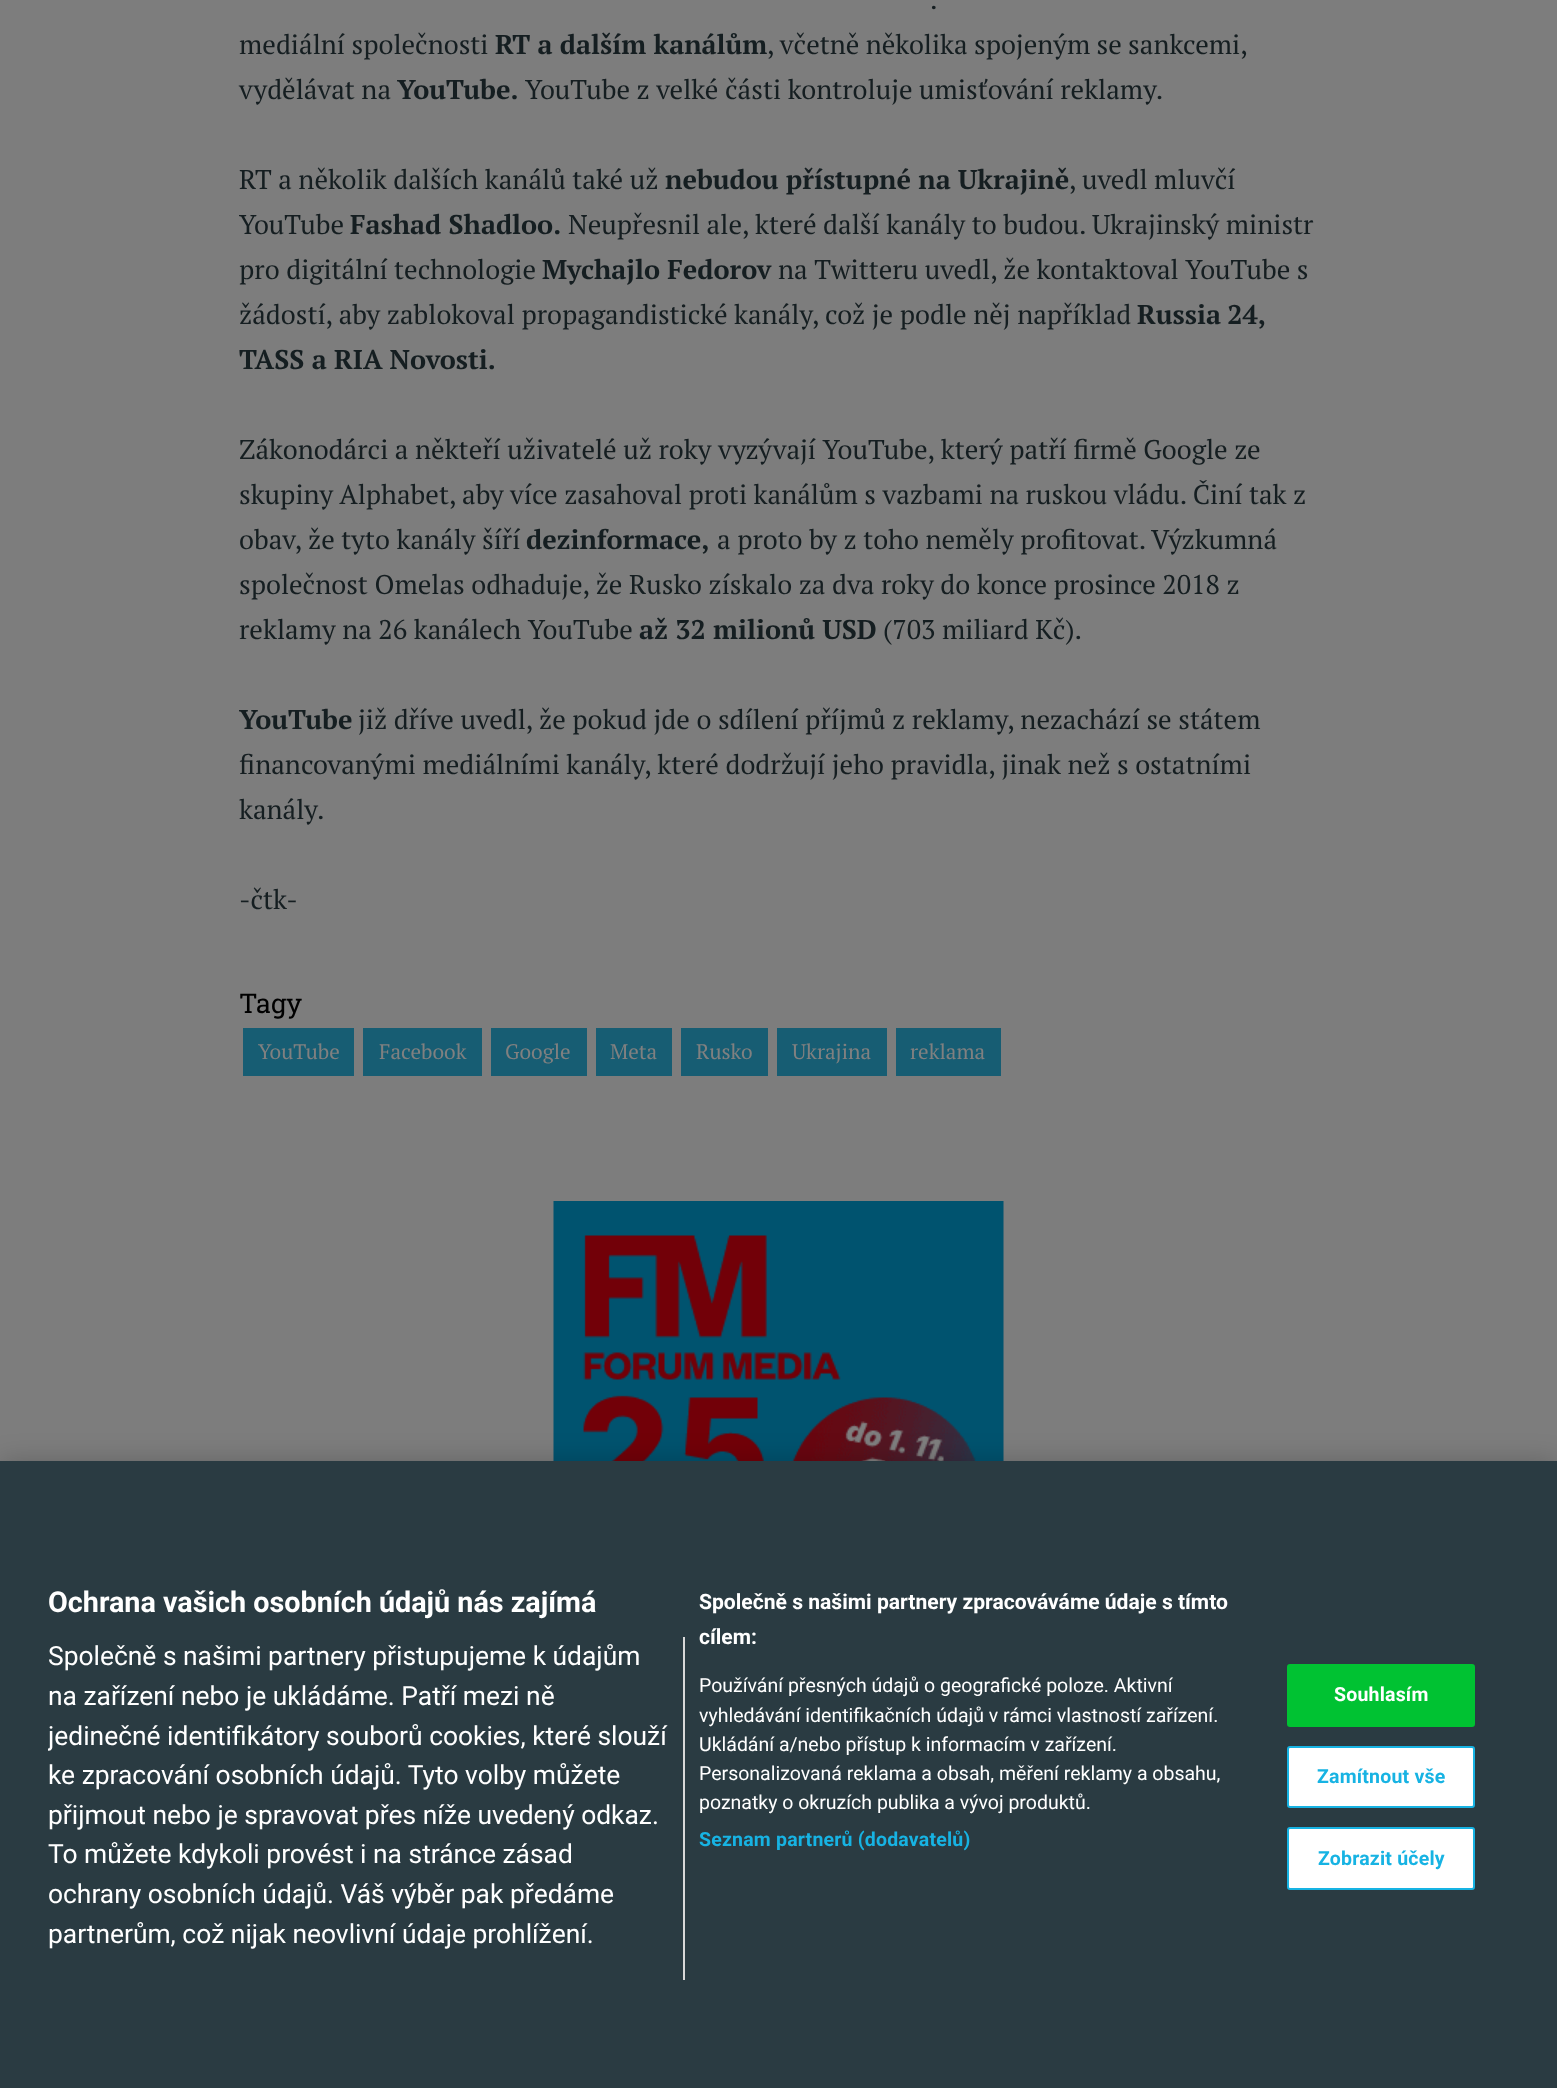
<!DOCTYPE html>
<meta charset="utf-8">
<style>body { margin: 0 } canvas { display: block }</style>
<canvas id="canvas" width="1557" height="2088"></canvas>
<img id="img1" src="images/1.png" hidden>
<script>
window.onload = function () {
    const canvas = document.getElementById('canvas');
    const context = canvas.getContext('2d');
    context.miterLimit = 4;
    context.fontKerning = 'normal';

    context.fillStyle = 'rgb(125, 125, 125)';
    context.fillRect(0, 0, 1557, 2088);
    context.fillStyle = 'rgb(23, 93, 115)';
    context.fillRect(243, 1028, 111, 48);
    context.fillRect(363, 1028, 119, 48);
    context.fillRect(491, 1028, 96, 48);
    context.fillRect(596, 1028, 76, 48);
    context.fillRect(681, 1028, 87, 48);
    context.fillRect(777, 1028, 110, 48);
    context.fillRect(896, 1028, 105, 48);
    context.drawImage(document.getElementById('img1'), 553, 1201, 451, 260);
    context.fillStyle = 'rgba(0, 0, 0, 0.2)';
    context.filter = 'blur(13.5px)';
    context.beginPath();
    context.rect(0, 1461, 1557, 627);
    context.fill();
    context.filter = 'none';
    context.fillStyle = 'rgb(42, 59, 66)';
    context.fillRect(0, 1461, 1557, 627);
    context.fillStyle = 'rgb(216, 216, 216)';
    context.fillRect(683, 1637, 2, 343);
    context.fillStyle = 'rgb(0, 194, 50)';
    context.beginPath();
    context.roundRect(1288, 1665, 186, 61, 2);
    context.fill();
    context.strokeStyle = 'rgb(0, 194, 50)';
    context.lineWidth = 2;
    context.stroke();
    context.fillStyle = 'rgb(255, 255, 255)';
    context.beginPath();
    context.roundRect(1288, 1747, 186, 60, 2);
    context.fill();
    context.strokeStyle = 'rgb(23, 179, 227)';
    context.stroke();
    context.beginPath();
    context.roundRect(1288, 1828, 186, 61, 2);
    context.fill();
    context.stroke();
    context.font = '27px PT Serif';
    context.fillStyle = 'rgb(21, 30, 33)';
    context.fillText('.', 930, 9);
    context.fillText('mediální společnosti', 239, 54);
    context.font = 'bold 27px PT Serif';
    context.fillText('RT a dalším kanálům', 495, 54);
    context.wordSpacing = '-0.25px';
    context.font = '27px PT Serif';
    context.fillText(', včetně několika spojeným se sankcemi,', 767, 54);
    context.wordSpacing = '0px';
    context.fillText('vydělávat na', 239, 99);
    context.font = 'bold 27px PT Serif';
    context.fillText('YouTube.', 397, 99);
    context.font = '27px PT Serif';
    context.fillText('YouTube z velké části kontroluje umisťování reklamy.', 525, 99);
    context.fillText('RT a několik dalších kanálů také už', 239, 189);
    context.font = 'bold 27px PT Serif';
    context.fillText('nebudou přístupné na Ukrajině', 665, 189);
    context.font = '27px PT Serif';
    context.fillText(', uvedl mluvčí', 1069, 189);
    context.fillText('YouTube', 239, 234);
    context.font = 'bold 27px PT Serif';
    context.fillText('Fashad Shadloo.', 350, 234);
    context.font = '27px PT Serif';
    context.fillText('Neupřesnil ale, které další kanály to budou. Ukrajinský ministr', 568, 234);
    context.fillText('pro digitální technologie', 239, 279);
    context.font = 'bold 27px PT Serif';
    context.fillText('Mychajlo Fedorov', 542, 279);
    context.font = '27px PT Serif';
    context.fillText('na Twitteru uvedl, že kontaktoval YouTube s', 778, 279);
    context.fillText('žádostí, aby zablokoval propagandistické kanály, což je podle něj například', 239, 324);
    context.wordSpacing = '-1px';
    context.font = 'bold 27px PT Serif';
    context.fillText('Russia 24,', 1137, 324);
    context.wordSpacing = '0px';
    context.fillText('TASS a RIA Novosti.', 239, 369);
    context.font = '27px PT Serif';
    context.fillText('Zákonodárci a někteří uživatelé už roky vyzývají YouTube, který patří firmě Google ze', 239, 459);
    context.fillText('skupiny Alphabet, aby více zasahoval proti kanálům s vazbami na ruskou vládu. Činí tak z', 239, 504);
    context.fillText('obav, že tyto kanály šíří', 239, 549);
    context.font = 'bold 27px PT Serif';
    context.fillText('dezinformace,', 526, 549);
    context.font = '27px PT Serif';
    context.fillText('a proto by z toho neměly profitovat. Výzkumná', 717, 549);
    context.fillText('společnost Omelas odhaduje, že Rusko získalo za dva roky do konce prosince 2018 z', 239, 594);
    context.fillText('reklamy na 26 kanálech YouTube', 239, 639);
    context.font = 'bold 27px PT Serif';
    context.fillText('až 32 milionů USD', 639, 639);
    context.font = '27px PT Serif';
    context.fillText('(703 miliard Kč).', 883, 639);
    context.font = 'bold 27px PT Serif';
    context.fillText('YouTube', 239, 729);
    context.font = '27px PT Serif';
    context.fillText('již dříve uvedl, že pokud jde o sdílení příjmů z reklamy, nezachází se státem', 358, 729);
    context.fillText('financovanými mediálními kanály, které dodržují jeho pravidla, jinak než s ostatními', 239, 774);
    context.fillText('kanály.', 239, 819);
    context.fillText('-čtk-', 239, 909);
    context.font = '27px Roboto Slab';
    context.fillStyle = 'rgb(0, 0, 0)';
    context.fillText('Tagy', 239, 1013);
    context.font = '21px PT Serif';
    context.fillStyle = 'rgb(128, 128, 128)';
    context.fillText('YouTube', 258, 1059);
    context.fillText('Facebook', 379, 1059);
    context.fillText('Google', 505, 1059);
    context.fillText('Meta', 610, 1059);
    context.fillText('Rusko', 696, 1059);
    context.fillText('Ukrajina', 792, 1059);
    context.fillText('reklama', 910, 1059);
    context.font = 'bold 28.75px Roboto';
    context.fillStyle = 'rgb(255, 255, 255)';
    context.fillText('Ochrana vašich osobních údajů nás zajímá', 48, 1612);
    context.font = 'bold 21.1px Roboto';
    context.fillText('Společně s našimi partnery zpracováváme údaje s tímto', 699, 1609);
    context.fillText('cílem:', 699, 1644);
    context.font = '19.5px Roboto';
    context.fillText('Používání přesných údajů o geografické poloze. Aktivní', 699, 1692);
    context.fillText('vyhledávání identifikačních údajů v rámci vlastností zařízení.', 699, 1722);
    context.fillText('Ukládání a/nebo přístup k informacím v zařízení.', 699, 1751);
    context.fillText('Personalizovaná reklama a obsah, měření reklamy a obsahu,', 699, 1780);
    context.fillText('poznatky o okruzích publika a vývoj produktů.', 699, 1809);
    context.letterSpacing = '0.2px';
    context.font = 'bold 19.5px Roboto';
    context.fillStyle = 'rgb(23, 179, 227)';
    context.fillText('Seznam partnerů (dodavatelů)', 699, 1846);
    context.letterSpacing = '0px';
    context.font = '26.4px Roboto';
    context.fillStyle = 'rgb(255, 255, 255)';
    context.fillText('Společně s našimi partnery přistupujeme k údajům', 48, 1665);
    context.fillText('na zařízení nebo je ukládáme. Patří mezi ně', 48, 1705);
    context.save();
    context.beginPath();
    context.rect(48, 1584, 1239, 396);
    context.clip();
    context.fillText('jedinečné identifikátory souborů cookies, které slouží', 48, 1745);
    context.restore();
    context.fillText('ke zpracování osobních údajů. Tyto volby můžete', 48, 1784);
    context.fillText('přijmout nebo je spravovat přes níže uvedený odkaz.', 48, 1824);
    context.fillText('To můžete kdykoli provést i na stránce zásad', 48, 1863);
    context.fillText('ochrany osobních údajů. Váš výběr pak předáme', 48, 1903);
    context.fillText('partnerům, což nijak neovlivní údaje prohlížení.', 48, 1943);
    context.letterSpacing = '0.2px';
    context.font = 'bold 19.5px Roboto';
    context.fillText('Souhlasím', 1334, 1701);
    context.fillStyle = 'rgb(23, 179, 227)';
    context.fillText('Zamítnout vše', 1317, 1783);
    context.fillText('Zobrazit účely', 1318, 1865);
};
</script>
